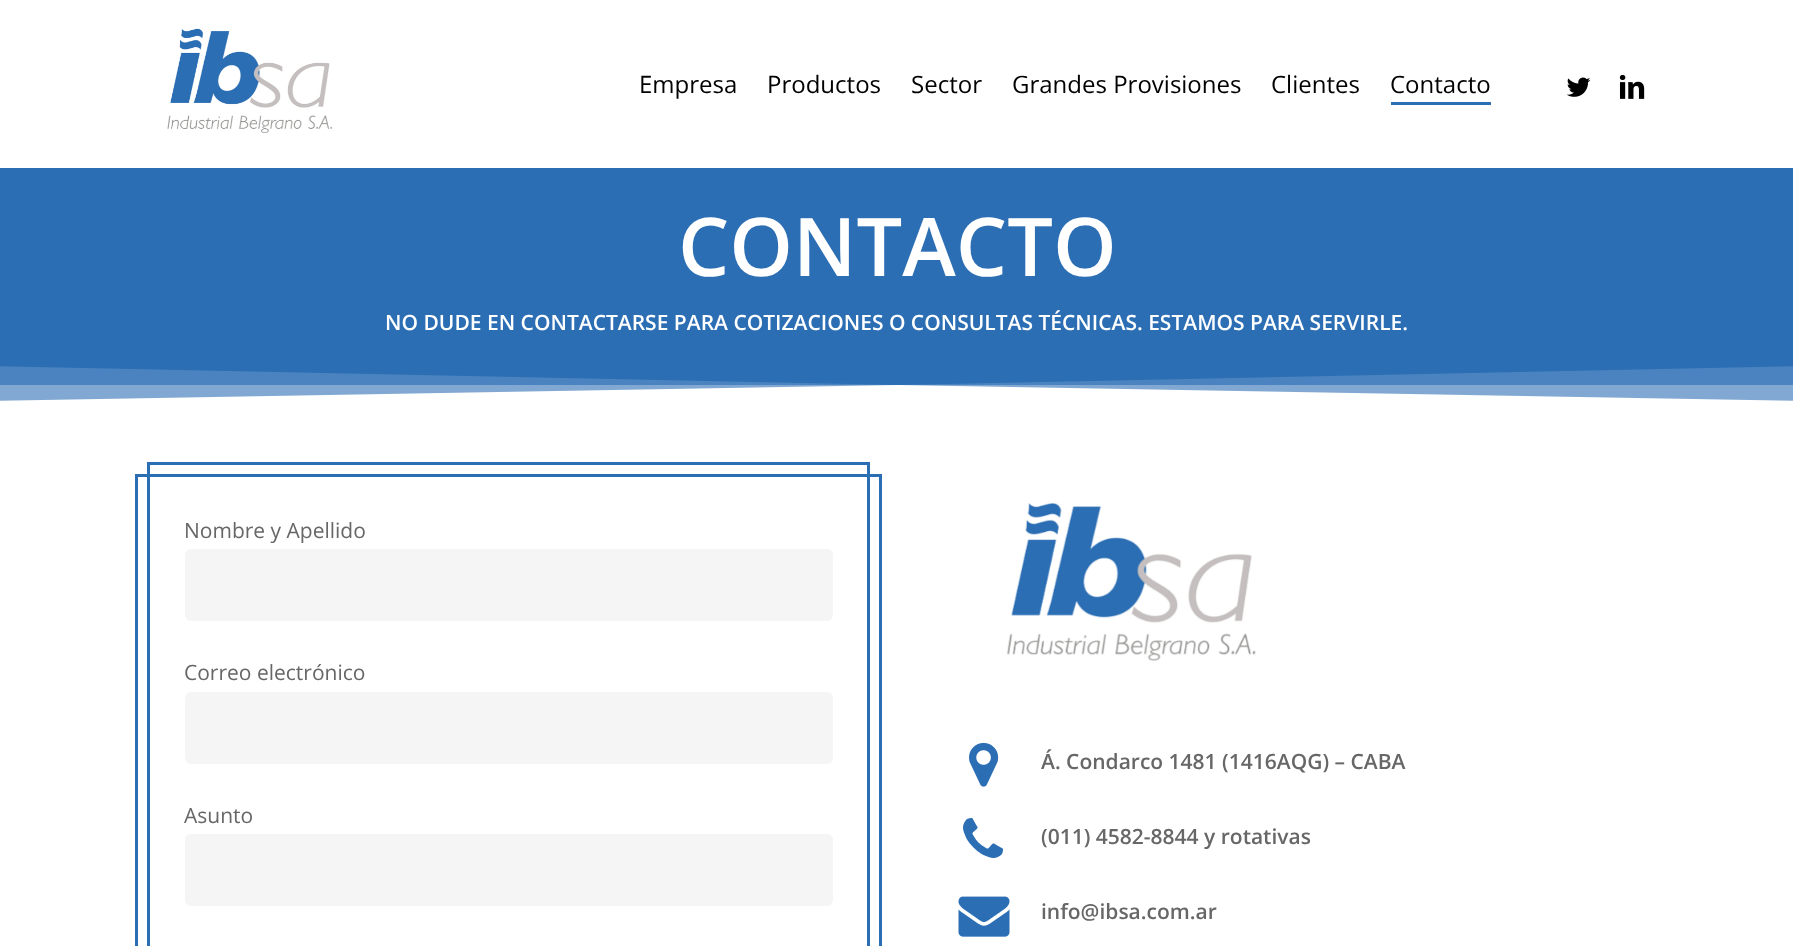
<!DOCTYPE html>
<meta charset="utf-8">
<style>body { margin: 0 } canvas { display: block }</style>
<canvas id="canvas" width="1793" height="946"></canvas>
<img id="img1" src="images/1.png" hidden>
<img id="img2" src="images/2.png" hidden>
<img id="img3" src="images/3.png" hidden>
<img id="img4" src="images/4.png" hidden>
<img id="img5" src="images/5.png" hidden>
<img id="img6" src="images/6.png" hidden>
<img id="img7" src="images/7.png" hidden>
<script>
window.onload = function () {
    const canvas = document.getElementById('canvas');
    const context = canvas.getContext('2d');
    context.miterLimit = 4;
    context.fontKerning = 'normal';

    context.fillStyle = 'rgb(255, 255, 255)';
    context.fillRect(0, 0, 1793, 946);
    context.drawImage(document.getElementById('img1'), 167, 28, 166, 105);
    context.fillStyle = 'rgb(43, 110, 180)';
    context.fillRect(1391, 102, 100, 3);
    context.drawImage(document.getElementById('img2'), 1566, 77, 25, 20);
    context.drawImage(document.getElementById('img3'), 1619, 74, 26, 25);
    context.fillRect(0, 168, 1793, 233);
    context.fillStyle = 'rgb(255, 255, 255)';
    context.beginPath();
    context.moveTo(898, 385);
    context.lineTo(-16, 401);
    context.lineTo(-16, 404);
    context.lineTo(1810, 404);
    context.lineTo(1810, 401);
    context.closePath();
    context.fill();
    context.fillStyle = 'rgba(255, 255, 255, 0.15)';
    context.beginPath();
    context.moveTo(898, 385);
    context.lineTo(-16, 366);
    context.lineTo(-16, 404);
    context.lineTo(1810, 404);
    context.lineTo(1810, 366);
    context.closePath();
    context.fill();
    context.fillStyle = 'rgba(255, 255, 255, 0.3)';
    context.fillRect(0, 385, 1793, 16);
    context.fillStyle = 'rgb(43, 110, 180)';
    context.fillRect(135, 474, 747, 3);
    context.fillRect(147, 462, 723, 3);
    context.fillRect(135, 474, 3, 472);
    context.fillRect(147, 462, 3, 484);
    context.fillRect(879, 474, 3, 472);
    context.fillRect(867, 462, 3, 484);
    context.fillStyle = 'rgb(245, 245, 245)';
    context.beginPath();
    context.roundRect(185, 549, 648, 72, 6);
    context.fill();
    context.beginPath();
    context.roundRect(185, 692, 648, 72, 6);
    context.fill();
    context.beginPath();
    context.roundRect(185, 834, 648, 72, 6);
    context.fill();
    context.drawImage(document.getElementById('img4'), 1006, 503, 250, 158);
    context.drawImage(document.getElementById('img5'), 969, 742, 30, 45);
    context.drawImage(document.getElementById('img6'), 963, 817, 41, 41);
    context.drawImage(document.getElementById('img7'), 958, 896, 52, 41);
    context.font = '24px Open Sans';
    context.fillStyle = 'rgb(0, 0, 0)';
    context.fillText('Empresa', 639, 93);
    context.fillText('Productos', 767, 93);
    context.fillText('Sector', 911, 93);
    context.fillText('Grandes Provisiones', 1012, 93);
    context.fillText('Clientes', 1271, 93);
    context.fillText('Contacto', 1390, 93);
    context.font = '600 81px Open Sans';
    context.fillStyle = 'rgb(255, 255, 255)';
    context.fillText('CONTACTO', 678, 276);
    context.font = '600 21px Open Sans';
    context.fillText('NO DUDE EN CONTACTARSE PARA COTIZACIONES O CONSULTAS TÉCNICAS. ESTAMOS PARA SERVIRLE.', 385, 330);
    context.font = '21px Open Sans';
    context.fillStyle = 'rgb(103, 103, 103)';
    context.fillText('Nombre y Apellido', 184, 538);
    context.fillText('Correo electrónico', 184, 680);
    context.fillText('Asunto', 184, 823);
    context.font = '600 21px Open Sans';
    context.fillText('Á. Condarco 1481 (1416AQG) – CABA', 1041, 769);
    context.fillText('(011) 4582-8844 y rotativas', 1041, 844);
    context.fillText('info@ibsa.com.ar', 1041, 919);
};
</script>
